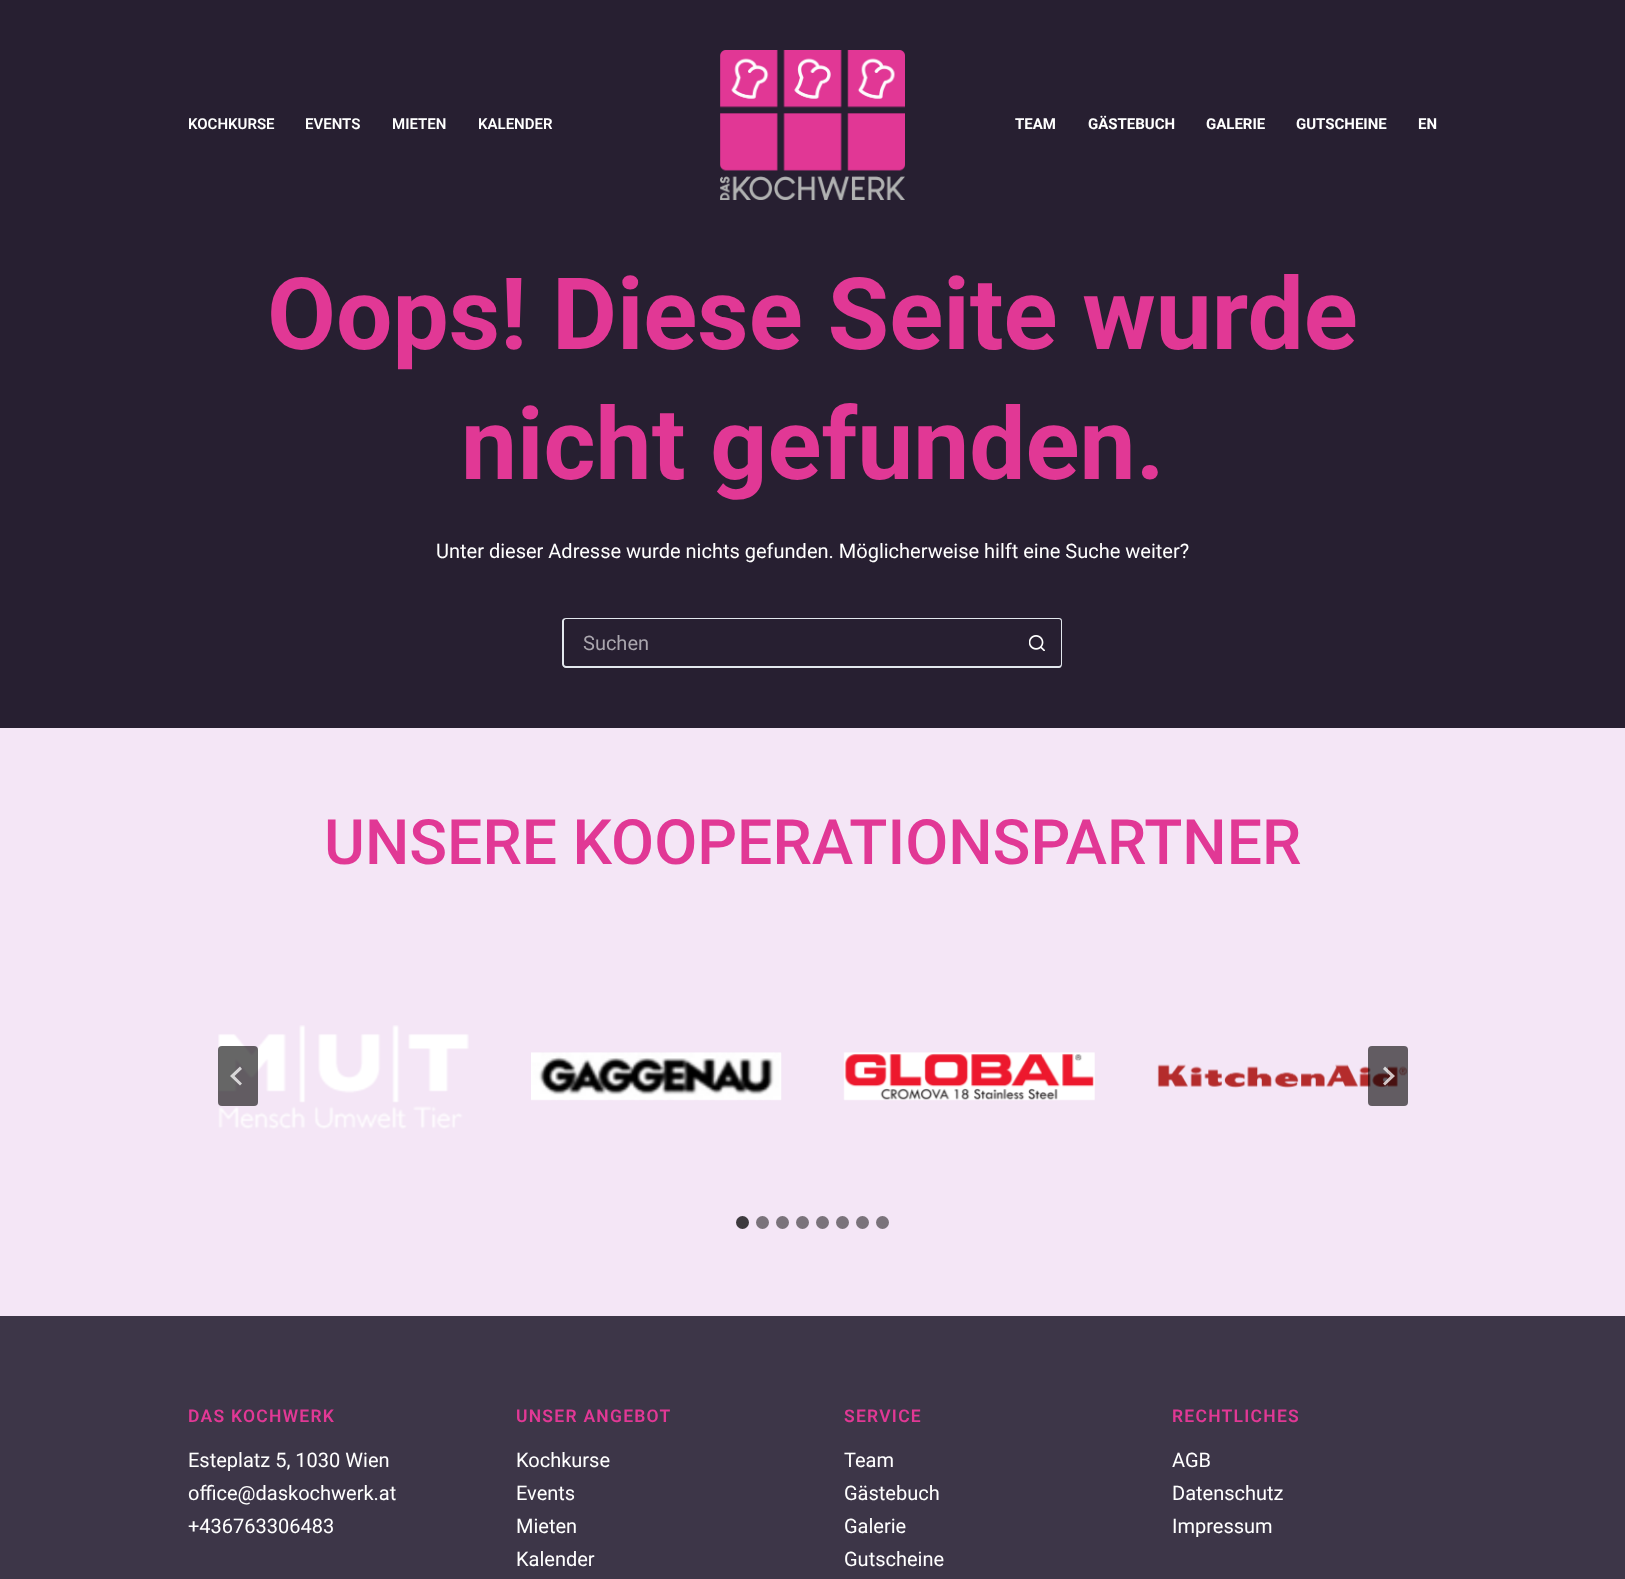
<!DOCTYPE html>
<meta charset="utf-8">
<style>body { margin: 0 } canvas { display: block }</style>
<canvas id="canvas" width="1625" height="1579"></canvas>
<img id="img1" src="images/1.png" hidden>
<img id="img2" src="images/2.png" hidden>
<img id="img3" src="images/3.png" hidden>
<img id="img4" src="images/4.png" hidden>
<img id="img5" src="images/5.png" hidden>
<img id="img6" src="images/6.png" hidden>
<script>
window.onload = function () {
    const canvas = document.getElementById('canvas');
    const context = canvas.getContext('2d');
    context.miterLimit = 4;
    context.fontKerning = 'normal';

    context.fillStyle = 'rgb(39, 31, 49)';
    context.fillRect(0, 0, 1625, 1579);
    context.drawImage(document.getElementById('img1'), 720, 50, 185, 150);
    context.fillStyle = 'rgb(226, 231, 237)';
    context.beginPath();
    context.moveTo(566, 618);
    context.lineTo(1012, 618);
    context.lineTo(1012, 668);
    context.lineTo(566, 668);
    context.bezierCurveTo(564, 668, 562, 666, 562, 664);
    context.lineTo(562, 621);
    context.bezierCurveTo(562, 619, 564, 618, 566, 618);
    context.closePath();
    context.moveTo(566, 619);
    context.lineTo(1012, 619);
    context.lineTo(1012, 666);
    context.lineTo(566, 666);
    context.bezierCurveTo(565, 666, 564, 665, 564, 664);
    context.lineTo(564, 621);
    context.bezierCurveTo(564, 620, 565, 619, 566, 619);
    context.closePath();
    context.fill('evenodd');
    context.beginPath();
    context.moveTo(1012, 618);
    context.lineTo(1059, 618);
    context.bezierCurveTo(1061, 618, 1062, 619, 1062, 621);
    context.lineTo(1062, 664);
    context.bezierCurveTo(1062, 666, 1061, 668, 1059, 668);
    context.lineTo(1012, 668);
    context.closePath();
    context.moveTo(1012, 619);
    context.lineTo(1059, 619);
    context.bezierCurveTo(1060, 619, 1061, 620, 1061, 621);
    context.lineTo(1061, 664);
    context.bezierCurveTo(1061, 665, 1060, 666, 1059, 666);
    context.lineTo(1012, 666);
    context.closePath();
    context.fill('evenodd');
    context.drawImage(document.getElementById('img2'), 1029, 635, 16, 16);
    context.fillStyle = 'rgb(244, 230, 246)';
    context.fillRect(0, 728, 1625, 588);
    context.drawImage(document.getElementById('img3'), 218, 1025, 251, 104);
    context.drawImage(document.getElementById('img4'), 531, 1052, 251, 49);
    context.drawImage(document.getElementById('img5'), 843, 1052, 252, 49);
    context.drawImage(document.getElementById('img6'), 1157, 1064, 251, 24);
    context.fillStyle = 'rgba(0, 0, 0, 0.6)';
    context.beginPath();
    context.roundRect(218, 1046, 40, 60, 4);
    context.fill();
    context.fillStyle = 'rgba(255, 255, 255, 0.75)';
    context.beginPath();
    context.moveTo(240, 1066.5);
    context.lineTo(242, 1069);
    context.lineTo(234.5, 1076);
    context.lineTo(242, 1083.5);
    context.lineTo(240, 1085.5);
    context.lineTo(230, 1076);
    context.closePath();
    context.fill();
    context.fillStyle = 'rgba(0, 0, 0, 0.6)';
    context.beginPath();
    context.roundRect(1368, 1046, 40, 60, 4);
    context.fill();
    context.fillStyle = 'rgba(255, 255, 255, 0.75)';
    context.beginPath();
    context.moveTo(1385, 1066.5);
    context.lineTo(1383, 1069);
    context.lineTo(1390.5, 1076);
    context.lineTo(1383, 1083.5);
    context.lineTo(1385, 1085.5);
    context.lineTo(1395, 1076);
    context.closePath();
    context.fill();
    context.fillStyle = 'rgb(61, 58, 62)';
    context.beginPath();
    context.arc(742.5, 1222.5, 6.5, 0, 2 * Math.PI);
    context.fill();
    context.fillStyle = 'rgb(122, 115, 123)';
    context.beginPath();
    context.arc(762.5, 1222.5, 6.5, 0, 2 * Math.PI);
    context.fill();
    context.beginPath();
    context.arc(782.5, 1222.5, 6.5, 0, 2 * Math.PI);
    context.fill();
    context.beginPath();
    context.arc(802.5, 1222.5, 6.5, 0, 2 * Math.PI);
    context.fill();
    context.beginPath();
    context.arc(822.5, 1222.5, 6.5, 0, 2 * Math.PI);
    context.fill();
    context.beginPath();
    context.arc(842.5, 1222.5, 6.5, 0, 2 * Math.PI);
    context.fill();
    context.beginPath();
    context.arc(862.5, 1222.5, 6.5, 0, 2 * Math.PI);
    context.fill();
    context.beginPath();
    context.arc(882.5, 1222.5, 6.5, 0, 2 * Math.PI);
    context.fill();
    context.fillStyle = 'rgb(61, 54, 72)';
    context.fillRect(0, 1316, 1625, 263);
    context.font = '600 15px Roboto';
    context.fillStyle = 'rgb(255, 255, 255)';
    context.fillText('KOCHKURSE', 188, 129);
    context.fillText('EVENTS', 305, 129);
    context.fillText('MIETEN', 392, 129);
    context.fillText('KALENDER', 478, 129);
    context.font = 'bold 15px Roboto';
    context.fillText('TEAM', 1015, 129);
    context.fillText('GÄSTEBUCH', 1088, 129);
    context.fillText('GALERIE', 1206, 129);
    context.fillText('GUTSCHEINE', 1296, 129);
    context.fillText('EN', 1418, 129);
    context.font = 'bold 100px Roboto';
    context.fillStyle = 'rgb(225, 56, 149)';
    context.fillText('Oops! Diese Seite wurde', 267, 349);
    context.fillText('nicht gefunden.', 461, 479);
    context.font = '20px Roboto';
    context.fillStyle = 'rgb(255, 255, 255)';
    context.fillText('Unter dieser Adresse wurde nichts gefunden. Möglicherweise hilft eine Suche weiter?', 436, 558);
    context.fillStyle = 'rgb(169, 165, 173)';
    context.fillText('Suchen', 583, 650);
    context.font = '500 62.5px Roboto';
    context.fillStyle = 'rgb(225, 56, 149)';
    context.fillText('UNSERE KOOPERATIONSPARTNER', 324, 864);
    context.letterSpacing = '1.25px';
    context.font = '600 17.5px Roboto';
    context.fillText('DAS KOCHWERK', 188, 1422);
    context.letterSpacing = '0px';
    context.font = '20px Roboto';
    context.fillStyle = 'rgb(255, 255, 255)';
    context.fillText('Esteplatz 5, 1030 Wien', 188, 1467);
    context.fillText('office@daskochwerk.at', 188, 1500);
    context.fillText('+436763306483', 188, 1533);
    context.letterSpacing = '1.25px';
    context.font = '600 17.5px Roboto';
    context.fillStyle = 'rgb(225, 56, 149)';
    context.fillText('UNSER ANGEBOT', 516, 1422);
    context.letterSpacing = '0px';
    context.font = '20px Roboto';
    context.fillStyle = 'rgb(255, 255, 255)';
    context.fillText('Kochkurse', 516, 1467);
    context.fillText('Events', 516, 1500);
    context.fillText('Mieten', 516, 1533);
    context.fillText('Kalender', 516, 1566);
    context.letterSpacing = '1.25px';
    context.font = '600 17.5px Roboto';
    context.fillStyle = 'rgb(225, 56, 149)';
    context.fillText('SERVICE', 844, 1422);
    context.letterSpacing = '0px';
    context.font = '20px Roboto';
    context.fillStyle = 'rgb(255, 255, 255)';
    context.fillText('Team', 844, 1467);
    context.fillText('Gästebuch', 844, 1500);
    context.fillText('Galerie', 844, 1533);
    context.fillText('Gutscheine', 844, 1566);
    context.letterSpacing = '1.25px';
    context.font = '600 17.5px Roboto';
    context.fillStyle = 'rgb(225, 56, 149)';
    context.fillText('RECHTLICHES', 1172, 1422);
    context.letterSpacing = '0px';
    context.font = '20px Roboto';
    context.fillStyle = 'rgb(255, 255, 255)';
    context.fillText('AGB', 1172, 1467);
    context.fillText('Datenschutz', 1172, 1500);
    context.fillText('Impressum', 1172, 1533);
};
</script>
